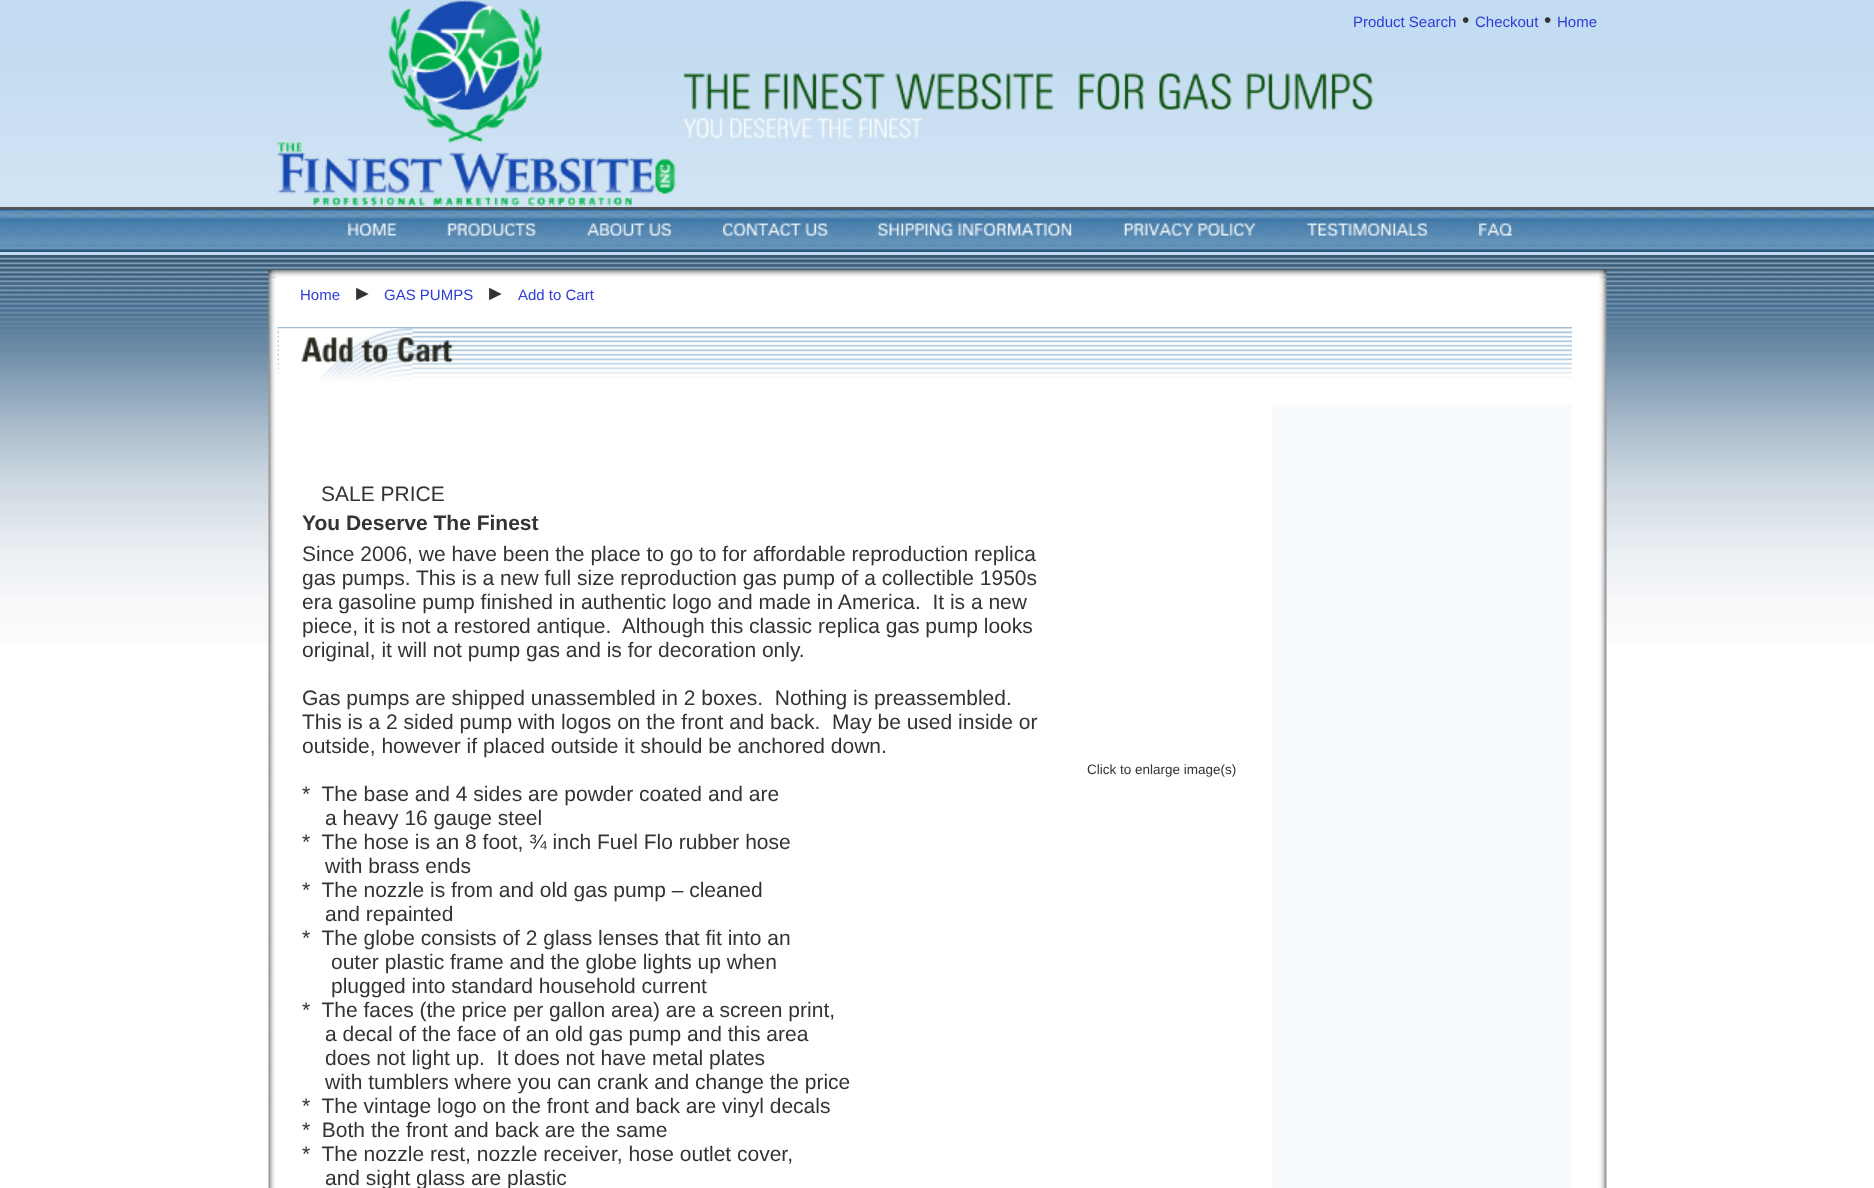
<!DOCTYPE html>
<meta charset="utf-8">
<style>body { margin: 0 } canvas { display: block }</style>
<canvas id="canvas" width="1874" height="1188"></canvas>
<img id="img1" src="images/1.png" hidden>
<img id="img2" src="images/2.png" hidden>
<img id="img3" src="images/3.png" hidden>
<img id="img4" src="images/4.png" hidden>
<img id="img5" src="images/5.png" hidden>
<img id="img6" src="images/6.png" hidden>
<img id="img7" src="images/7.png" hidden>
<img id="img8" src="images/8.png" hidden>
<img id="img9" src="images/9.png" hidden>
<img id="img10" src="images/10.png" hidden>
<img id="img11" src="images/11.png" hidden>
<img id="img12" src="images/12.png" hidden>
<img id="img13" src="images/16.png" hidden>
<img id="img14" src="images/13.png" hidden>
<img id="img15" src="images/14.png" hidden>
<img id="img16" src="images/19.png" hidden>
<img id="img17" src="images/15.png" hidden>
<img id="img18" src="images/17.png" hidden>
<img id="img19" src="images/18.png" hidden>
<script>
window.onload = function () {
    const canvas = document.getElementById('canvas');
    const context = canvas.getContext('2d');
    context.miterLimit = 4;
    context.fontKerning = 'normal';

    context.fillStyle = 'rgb(255, 255, 255)';
    context.fillRect(0, 0, 1874, 1188);
    context.fillStyle = 'rgb(85, 85, 85)';
    context.fillRect(0, 207, 1874, 2);
    context.drawImage(document.getElementById('img1'), 0, 0, 1874, 207);
    context.drawImage(document.getElementById('img2'), 277, 0, 1096, 206);
    context.drawImage(document.getElementById('img3'), 0, 209, 1874, 43);
    context.fillStyle = 'rgb(195, 220, 241)';
    context.fillRect(0, 252, 1874, 3);
    context.drawImage(document.getElementById('img4'), 348, 223, 48, 14);
    context.drawImage(document.getElementById('img5'), 447, 223, 89, 14);
    context.drawImage(document.getElementById('img6'), 586, 223, 86, 14);
    context.drawImage(document.getElementById('img7'), 723, 223, 105, 14);
    context.drawImage(document.getElementById('img8'), 877, 223, 195, 14);
    context.drawImage(document.getElementById('img9'), 1123, 223, 133, 14);
    context.drawImage(document.getElementById('img10'), 1306, 223, 122, 14);
    context.drawImage(document.getElementById('img11'), 1479, 223, 33, 14);
    context.drawImage(document.getElementById('img12'), 0, 255, 1874, 387);
    context.drawImage(document.getElementById('img13'), 268, 277, 8, 911);
    context.drawImage(document.getElementById('img14'), 268, 270, 8, 8);
    context.drawImage(document.getElementById('img15'), 276, 270, 1323, 7);
    context.drawImage(document.getElementById('img16'), 1599, 277, 8, 911);
    context.drawImage(document.getElementById('img17'), 1599, 270, 8, 8);
    context.fillStyle = 'rgb(255, 255, 255)';
    context.fillRect(276, 277, 1323, 365);
    context.drawImage(document.getElementById('img18'), 277, 327, 1295, 51);
    context.drawImage(document.getElementById('img19'), 279, 328, 174, 54);
    context.fillStyle = 'rgb(248, 251, 253)';
    context.fillRect(1272, 405, 300, 783);
    context.font = '15px Liberation Sans';
    context.fillStyle = 'rgb(45, 61, 216)';
    context.fillText('Product Search', 1353, 27);
    context.font = '21px Liberation Sans';
    context.fillStyle = 'rgb(51, 51, 51)';
    context.fillText('•', 1462, 27);
    context.font = '15px Liberation Sans';
    context.fillStyle = 'rgb(45, 61, 216)';
    context.fillText('Checkout', 1475, 27);
    context.font = '21px Liberation Sans';
    context.fillStyle = 'rgb(51, 51, 51)';
    context.fillText('•', 1544, 27);
    context.font = '15px Liberation Sans';
    context.fillStyle = 'rgb(45, 61, 216)';
    context.fillText('Home', 1557, 27);
    context.fillText('Home', 300, 300);
    context.font = '21px Liberation Sans';
    context.fillStyle = 'rgb(51, 51, 51)';
    context.fillText('►', 352, 300);
    context.font = '15px Liberation Sans';
    context.fillStyle = 'rgb(45, 61, 216)';
    context.fillText('GAS PUMPS', 384, 300);
    context.font = '21px Liberation Sans';
    context.fillStyle = 'rgb(51, 51, 51)';
    context.fillText('►', 485, 300);
    context.font = '15px Liberation Sans';
    context.fillStyle = 'rgb(45, 61, 216)';
    context.fillText('Add to Cart', 518, 300);
    context.font = '21px Liberation Sans';
    context.fillStyle = 'rgb(51, 51, 51)';
    context.fillText('SALE PRICE', 321, 501);
    context.font = 'bold 21px Liberation Sans';
    context.fillText('You Deserve The Finest', 302, 530);
    context.font = '21px Liberation Sans';
    context.fillText('Since 2006, we have been the place to go to for affordable reproduction replica', 302, 561);
    context.fillText('gas pumps. This is a new full size reproduction gas pump of a collectible 1950s', 302, 585);
    context.fillText('era gasoline pump finished in authentic logo and made in America.  It is a new', 302, 609);
    context.fillText('piece, it is not a restored antique.  Although this classic replica gas pump looks', 302, 633);
    context.fillText('original, it will not pump gas and is for decoration only.', 302, 657);
    context.fillText('Gas pumps are shipped unassembled in 2 boxes.  Nothing is preassembled.', 302, 705);
    context.fillText('This is a 2 sided pump with logos on the front and back.  May be used inside or', 302, 729);
    context.fillText('outside, however if placed outside it should be anchored down.', 302, 753);
    context.font = '13.5px Liberation Sans';
    context.fillText('Click to enlarge image(s)', 1087, 774);
    context.font = '21px Liberation Sans';
    context.fillText('*  The base and 4 sides are powder coated and are', 302, 801);
    context.fillText('a heavy 16 gauge steel', 325, 825);
    context.fillText('*  The hose is an 8 foot, ¾ inch Fuel Flo rubber hose', 302, 849);
    context.fillText('with brass ends', 325, 873);
    context.fillText('*  The nozzle is from and old gas pump – cleaned', 302, 897);
    context.fillText('and repainted', 325, 921);
    context.fillText('*  The globe consists of 2 glass lenses that fit into an', 302, 945);
    context.fillText('outer plastic frame and the globe lights up when', 331, 969);
    context.fillText('plugged into standard household current', 331, 993);
    context.fillText('*  The faces (the price per gallon area) are a screen print,', 302, 1017);
    context.fillText('a decal of the face of an old gas pump and this area', 325, 1041);
    context.fillText('does not light up.  It does not have metal plates', 325, 1065);
    context.fillText('with tumblers where you can crank and change the price', 325, 1089);
    context.fillText('*  The vintage logo on the front and back are vinyl decals', 302, 1113);
    context.fillText('*  Both the front and back are the same', 302, 1137);
    context.fillText('*  The nozzle rest, nozzle receiver, hose outlet cover,', 302, 1161);
    context.fillText('and sight glass are plastic', 325, 1185);
};
</script>
